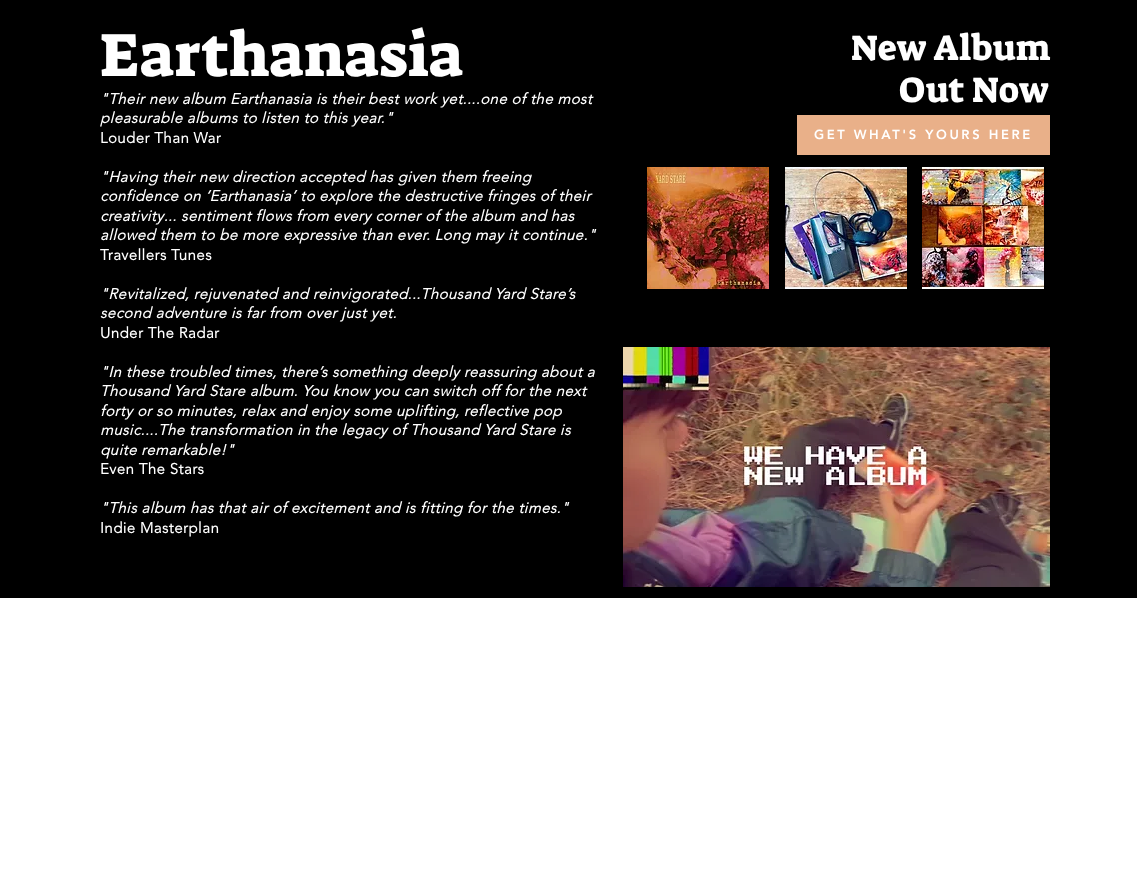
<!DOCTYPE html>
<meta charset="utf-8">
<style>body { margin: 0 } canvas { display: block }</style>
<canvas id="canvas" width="1137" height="877"></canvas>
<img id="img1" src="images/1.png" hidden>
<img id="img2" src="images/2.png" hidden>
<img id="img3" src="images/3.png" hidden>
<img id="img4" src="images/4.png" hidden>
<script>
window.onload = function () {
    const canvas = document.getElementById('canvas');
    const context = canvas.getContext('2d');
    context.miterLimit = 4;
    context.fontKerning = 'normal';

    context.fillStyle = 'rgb(255, 255, 255)';
    context.fillRect(0, 0, 1137, 877);
    context.fillStyle = 'rgb(0, 0, 0)';
    context.fillRect(0, 0, 1137, 598);
    context.fillStyle = 'rgb(233, 176, 137)';
    context.fillRect(797, 115, 253, 40);
    context.drawImage(document.getElementById('img1'), 647, 167, 122, 122);
    context.drawImage(document.getElementById('img2'), 785, 167, 122, 122);
    context.drawImage(document.getElementById('img3'), 922, 167, 122, 122);
    context.drawImage(document.getElementById('img4'), 623, 347, 427, 240);
    context.font = '62px Suez One';
    context.fillStyle = 'rgb(255, 255, 255)';
    context.fillText('Earthanasia', 100, 76);
    context.font = '36px Suez One';
    context.fillText('New Album', 851, 60);
    context.letterSpacing = '0.45px';
    context.font = 'italic bold 15px "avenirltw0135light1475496"';
    context.fillText('"Their new album Earthanasia is their best work yet....one of the most', 100, 104);
    context.fillText('pleasurable albums to listen to this year."', 100, 123);
    context.font = 'bold 15px "avenirltw0135light1475496"';
    context.fillText('Louder Than War', 100, 143);
    context.font = 'italic bold 15px "avenirltw0135light1475496"';
    context.fillText('"Having their new direction accepted has given them freeing', 100, 182);
    context.fillText('confidence on ‘Earthanasia’ to explore the destructive fringes of their', 100, 201);
    context.fillText('creativity... sentiment flows from every corner of the album and has', 100, 221);
    context.fillText('allowed them to be more expressive than ever. Long may it continue."', 100, 240);
    context.font = 'bold 15px "avenirltw0135light1475496"';
    context.fillText('Travellers Tunes', 100, 260);
    context.font = 'italic bold 15px "avenirltw0135light1475496"';
    context.fillText('"Revitalized, rejuvenated and reinvigorated...Thousand Yard Stare’s', 100, 299);
    context.fillText('second adventure is far from over just yet.', 100, 318);
    context.font = 'bold 15px "avenirltw0135light1475496"';
    context.fillText('Under The Radar', 100, 338);
    context.font = 'italic bold 15px "avenirltw0135light1475496"';
    context.fillText('"In these troubled times, there’s something deeply reassuring about a', 100, 377);
    context.fillText('Thousand Yard Stare album. You know you can switch off for the next', 100, 396);
    context.fillText('forty or so minutes, relax and enjoy some uplifting, reflective pop', 100, 416);
    context.fillText('music....The transformation in the legacy of Thousand Yard Stare is', 100, 435);
    context.fillText('quite remarkable!"', 100, 455);
    context.font = 'bold 15px "avenirltw0135light1475496"';
    context.fillText('Even The Stars', 100, 474);
    context.font = 'italic bold 15px "avenirltw0135light1475496"';
    context.fillText('"This album has that air of excitement and is fitting for the times."', 100, 513);
    context.font = 'bold 15px "avenirltw0135light1475496"';
    context.fillText('Indie Masterplan', 100, 533);
    context.letterSpacing = '0px';
    context.font = '36px Suez One';
    context.fillText('Out Now', 899, 102);
    context.letterSpacing = '2.6px';
    context.font = '900 13px "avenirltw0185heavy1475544"';
    context.fillText('GET WHAT\'S YOURS HERE', 814, 139);
};
</script>
